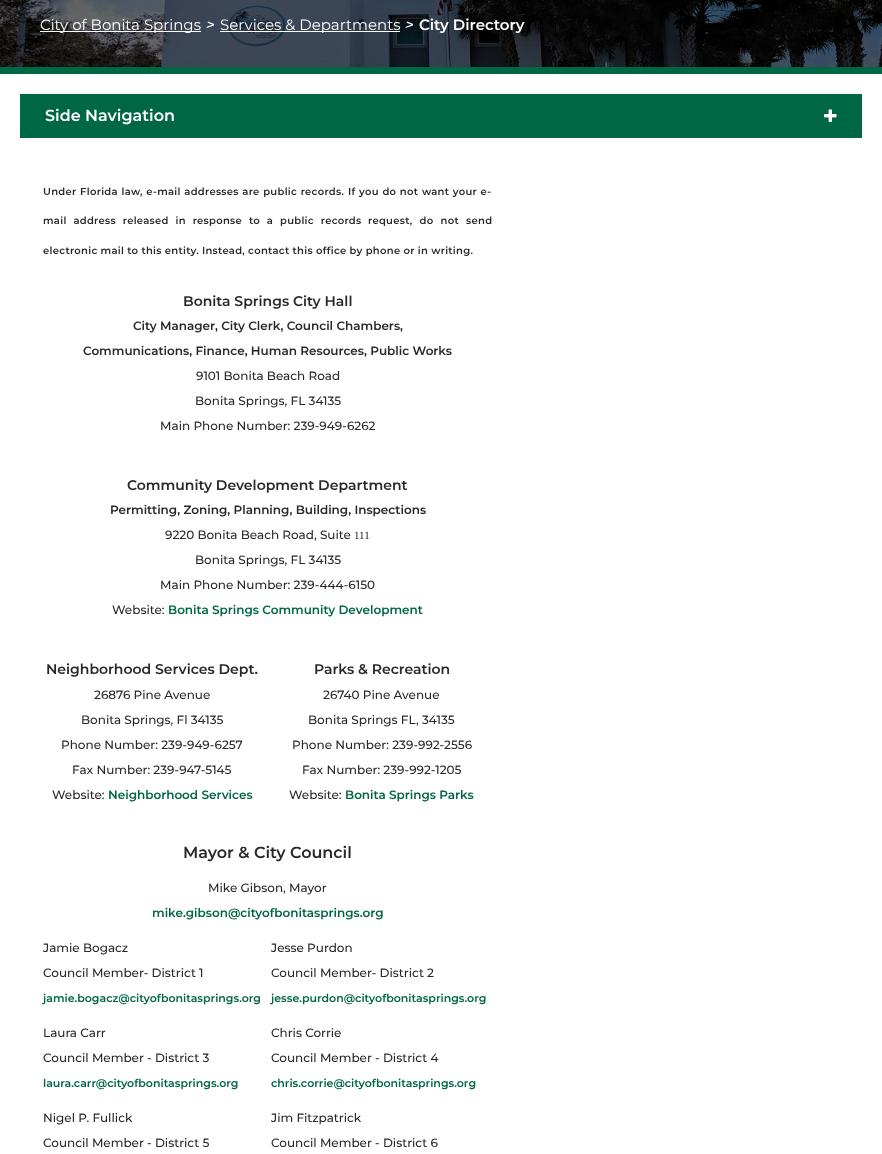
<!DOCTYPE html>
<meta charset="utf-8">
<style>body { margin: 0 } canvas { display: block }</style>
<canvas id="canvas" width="882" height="1154"></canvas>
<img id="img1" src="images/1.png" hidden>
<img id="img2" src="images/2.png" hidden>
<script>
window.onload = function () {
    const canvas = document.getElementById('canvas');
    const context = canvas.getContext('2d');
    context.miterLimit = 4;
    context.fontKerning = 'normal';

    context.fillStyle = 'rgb(255, 255, 255)';
    context.fillRect(0, 0, 882, 1154);
    context.drawImage(document.getElementById('img1'), 0, 0, 882, 67);
    context.fillStyle = 'rgb(0, 103, 69)';
    context.fillRect(0, 67, 882, 7);
    context.fillStyle = 'rgb(255, 255, 255)';
    context.fillRect(40, 31, 161, 1);
    context.fillRect(220, 31, 180, 1);
    context.fillStyle = 'rgb(0, 103, 69)';
    context.fillRect(20, 94, 842, 44);
    context.drawImage(document.getElementById('img2'), 824, 109, 13, 13);
    context.font = '15px Montserrat';
    context.fillStyle = 'rgb(255, 255, 255)';
    context.fillText('City of Bonita Springs', 40, 30);
    context.font = 'italic 500 15px Montserrat';
    context.fillText('>', 206, 30);
    context.font = '15px Montserrat';
    context.fillText('Services & Departments', 220, 30);
    context.font = 'italic 500 15px Montserrat';
    context.fillText('>', 405, 30);
    context.font = '600 15px Montserrat';
    context.fillText('City Directory', 419, 30);
    context.font = '600 16px Montserrat';
    context.fillText('Side Navigation', 45, 121);
    context.letterSpacing = '0.3px';
    context.wordSpacing = '0.5px';
    context.font = '600 10px Montserrat';
    context.fillStyle = 'rgb(40, 40, 40)';
    context.fillText('Under Florida law, e-mail addresses are public records.', 43, 195);
    context.fillText('If you do not want your e-', 348, 195);
    context.wordSpacing = '3.75px';
    context.fillText('mail address released in response to a public records', 43, 224);
    context.wordSpacing = '4px';
    context.fillText('request, do not send', 368, 224);
    context.wordSpacing = '0px';
    context.fillText('electronic mail to this entity. Instead, contact this office by phone or in writing.', 43, 254);
    context.letterSpacing = '0px';
    context.font = '600 14px Montserrat';
    context.fillText('Bonita Springs City Hall', 183, 306);
    context.font = '600 12px Montserrat';
    context.fillText('City Manager, City Clerk, Council Chambers,', 133, 330);
    context.fillText('Communications, Finance, Human Resources, Public Works', 83, 355);
    context.font = '500 12px Montserrat';
    context.fillText('9101 Bonita Beach Road', 196, 380);
    context.fillText('Bonita Springs, FL 34135', 195, 405);
    context.fillText('Main Phone Number: 239-949-6262', 160, 430);
    context.font = '600 14px Montserrat';
    context.fillText('Community Development Department', 127, 490);
    context.font = '600 12px Montserrat';
    context.fillText('Permitting, Zoning, Planning, Building, Inspections', 110, 514);
    context.font = '500 12px Montserrat';
    context.fillText('9220 Bonita Beach Road, Suite', 165, 539);
    context.font = '11px Liberation Serif';
    context.fillText('111', 354, 539);
    context.font = '500 12px Montserrat';
    context.fillText('Bonita Springs, FL 34135', 195, 564);
    context.fillText('Main Phone Number: 239-444-6150', 160, 589);
    context.fillText('Website:', 112, 614);
    context.font = '600 12px Montserrat';
    context.fillStyle = 'rgb(0, 103, 69)';
    context.fillText('Bonita Springs Community Development', 168, 614);
    context.font = '600 14px Montserrat';
    context.fillStyle = 'rgb(40, 40, 40)';
    context.fillText('Neighborhood Services Dept.', 46, 674);
    context.font = '500 12px Montserrat';
    context.fillText('26876 Pine Avenue', 94, 699);
    context.fillText('Bonita Springs, Fl 34135', 81, 724);
    context.fillText('Phone Number: 239-949-6257', 61, 749);
    context.fillText('Fax Number: 239-947-5145', 72, 774);
    context.fillText('Website:', 52, 799);
    context.font = '600 12px Montserrat';
    context.fillStyle = 'rgb(0, 103, 69)';
    context.fillText('Neighborhood Services', 108, 799);
    context.font = '600 14px Montserrat';
    context.fillStyle = 'rgb(40, 40, 40)';
    context.fillText('Parks & Recreation', 314, 674);
    context.font = '500 12px Montserrat';
    context.fillText('26740 Pine Avenue', 323, 699);
    context.fillText('Bonita Springs FL, 34135', 308, 724);
    context.fillText('Phone Number: 239-992-2556', 292, 749);
    context.fillText('Fax Number: 239-992-1205', 302, 774);
    context.fillText('Website:', 289, 799);
    context.font = '600 12px Montserrat';
    context.fillStyle = 'rgb(0, 103, 69)';
    context.fillText('Bonita Springs Parks', 345, 799);
    context.font = '600 16px Montserrat';
    context.fillStyle = 'rgb(40, 40, 40)';
    context.fillText('Mayor & City Council', 183, 858);
    context.font = '500 12px Montserrat';
    context.fillText('Mike Gibson, Mayor', 208, 892);
    context.font = '600 12px Montserrat';
    context.fillStyle = 'rgb(0, 103, 69)';
    context.fillText('mike.gibson@cityofbonitasprings.org', 152, 917);
    context.font = '500 12px Montserrat';
    context.fillStyle = 'rgb(40, 40, 40)';
    context.fillText('Jamie Bogacz', 43, 952);
    context.fillText('Council Member- District 1', 43, 977);
    context.font = '600 11px Montserrat';
    context.fillStyle = 'rgb(0, 103, 69)';
    context.fillText('jamie.bogacz@cityofbonitasprings.org', 43, 1002);
    context.font = '500 12px Montserrat';
    context.fillStyle = 'rgb(40, 40, 40)';
    context.fillText('Jesse Purdon', 271, 952);
    context.fillText('Council Member- District 2', 271, 977);
    context.font = '600 11px Montserrat';
    context.fillStyle = 'rgb(0, 103, 69)';
    context.fillText('jesse.purdon@cityofbonitasprings.org', 271, 1002);
    context.font = '500 12px Montserrat';
    context.fillStyle = 'rgb(40, 40, 40)';
    context.fillText('Laura Carr', 43, 1037);
    context.fillText('Council Member - District 3', 43, 1062);
    context.font = '600 11px Montserrat';
    context.fillStyle = 'rgb(0, 103, 69)';
    context.fillText('laura.carr@cityofbonitasprings.org', 43, 1087);
    context.font = '500 12px Montserrat';
    context.fillStyle = 'rgb(40, 40, 40)';
    context.fillText('Chris Corrie', 271, 1037);
    context.fillText('Council Member - District 4', 271, 1062);
    context.font = '600 11px Montserrat';
    context.fillStyle = 'rgb(0, 103, 69)';
    context.fillText('chris.corrie@cityofbonitasprings.org', 271, 1087);
    context.font = '500 12px Montserrat';
    context.fillStyle = 'rgb(40, 40, 40)';
    context.fillText('Nigel P. Fullick', 43, 1122);
    context.fillText('Council Member - District 5', 43, 1147);
    context.fillText('Jim Fitzpatrick', 271, 1122);
    context.fillText('Council Member - District 6', 271, 1147);
};
</script>
